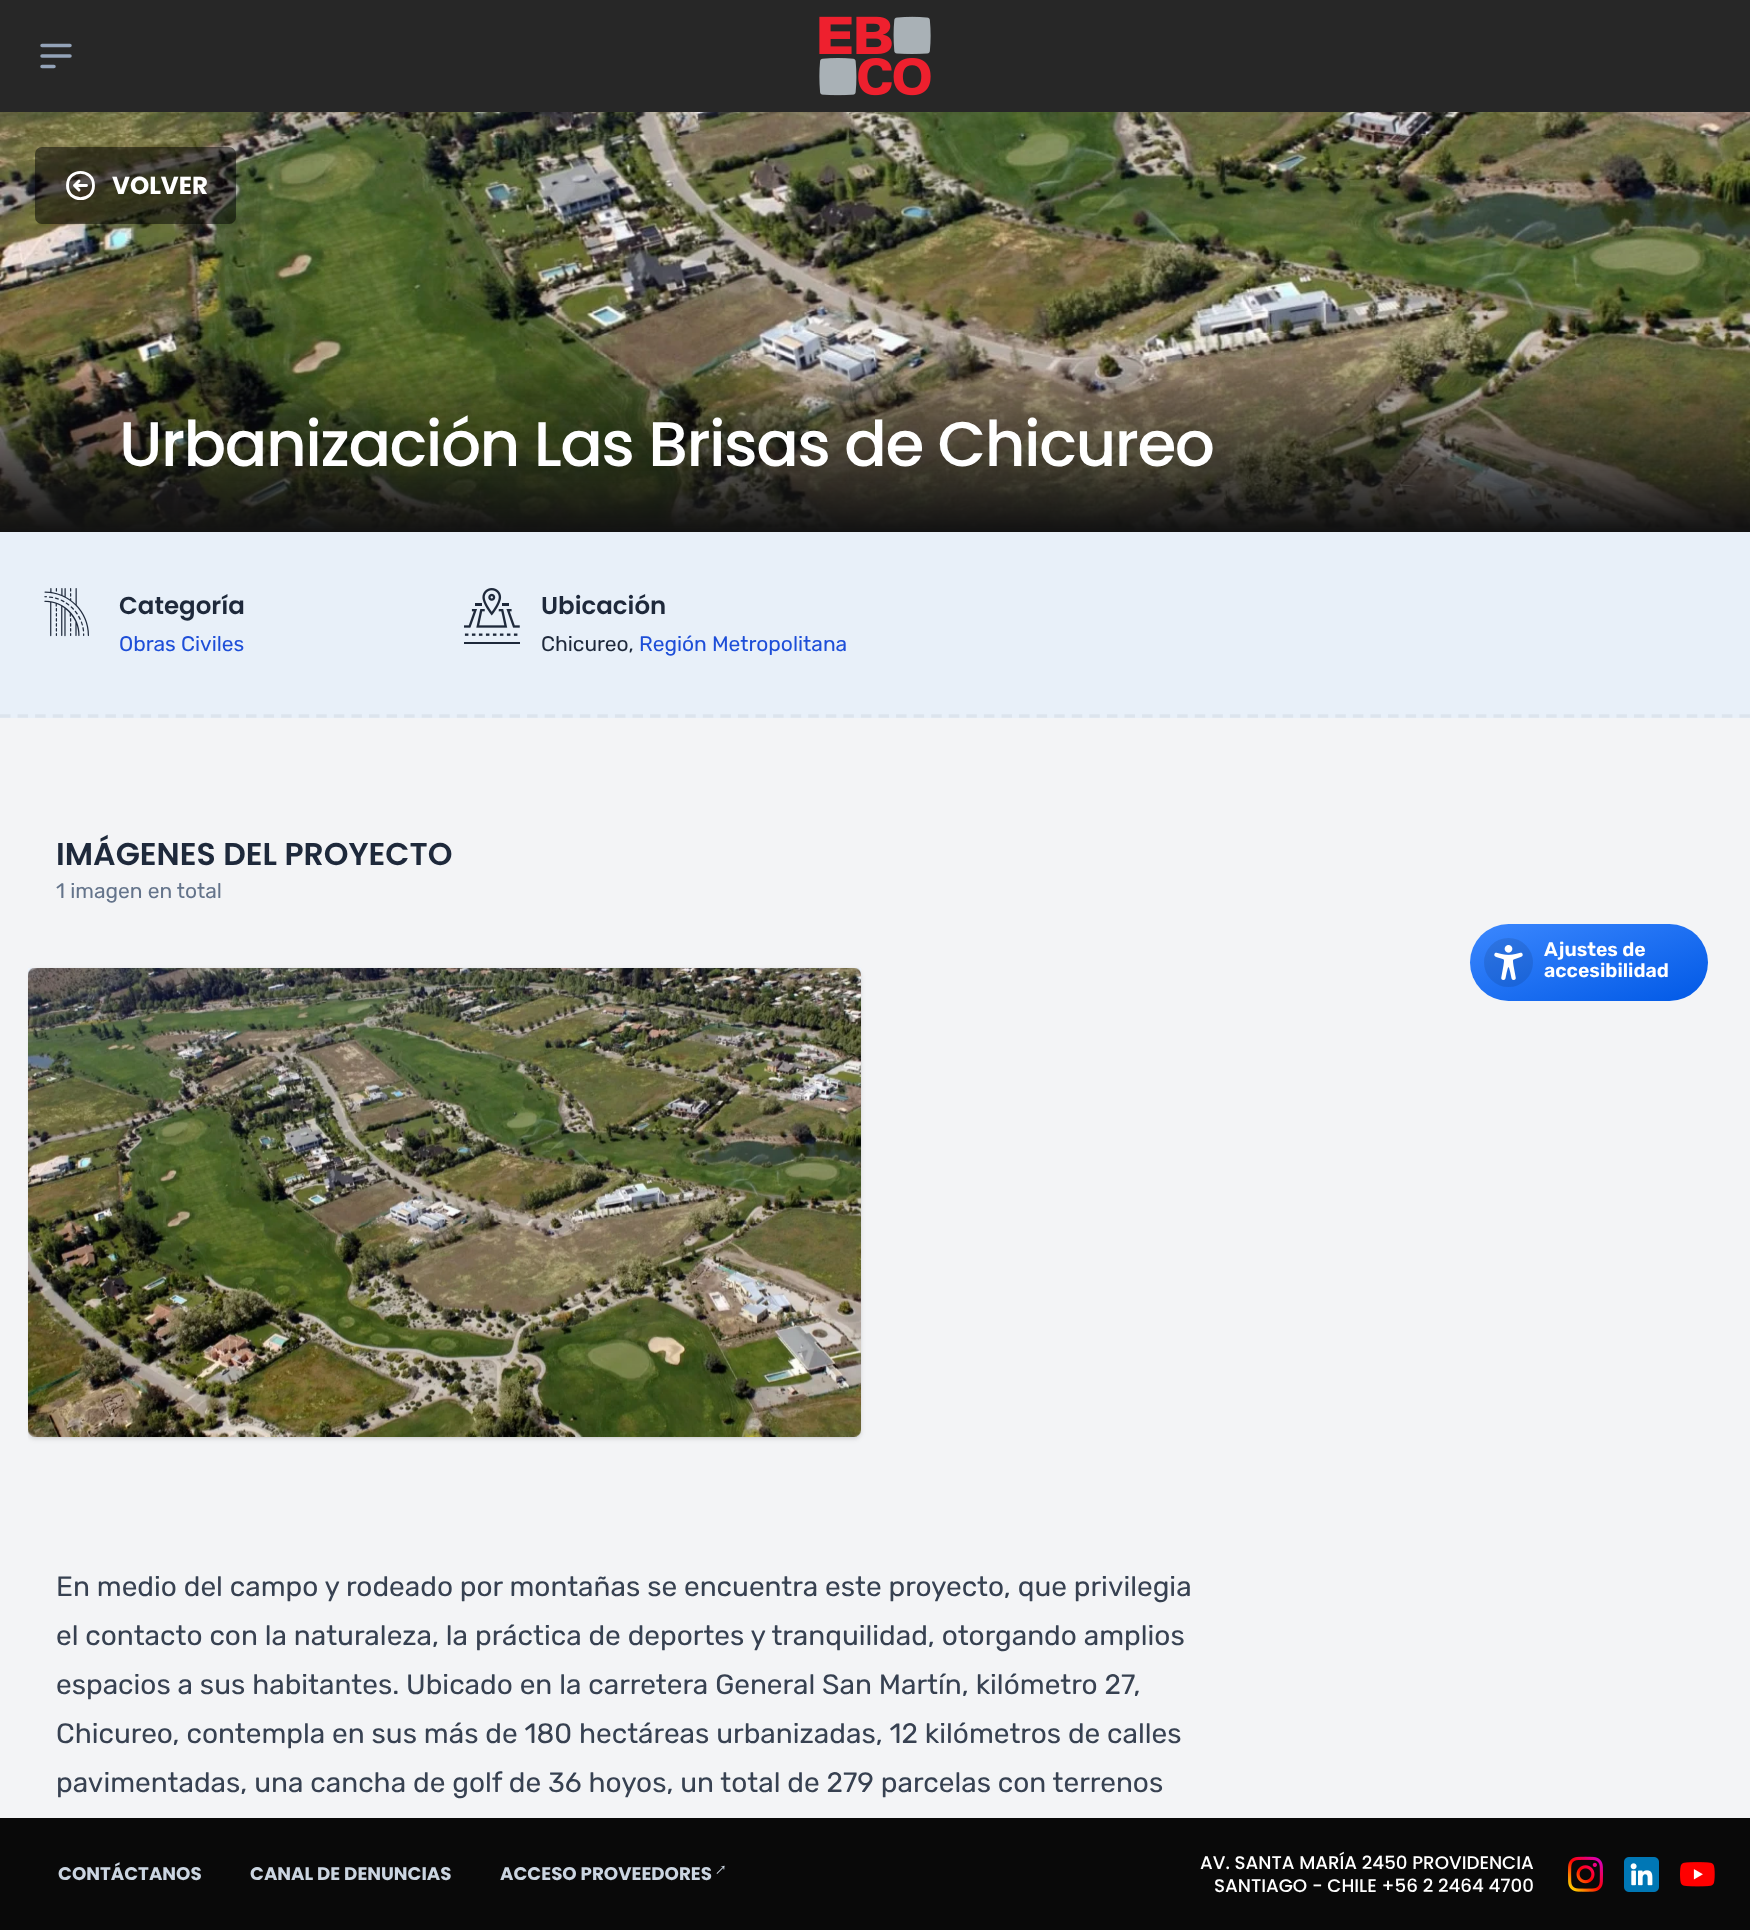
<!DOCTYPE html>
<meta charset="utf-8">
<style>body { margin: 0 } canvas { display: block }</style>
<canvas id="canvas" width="1750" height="1930"></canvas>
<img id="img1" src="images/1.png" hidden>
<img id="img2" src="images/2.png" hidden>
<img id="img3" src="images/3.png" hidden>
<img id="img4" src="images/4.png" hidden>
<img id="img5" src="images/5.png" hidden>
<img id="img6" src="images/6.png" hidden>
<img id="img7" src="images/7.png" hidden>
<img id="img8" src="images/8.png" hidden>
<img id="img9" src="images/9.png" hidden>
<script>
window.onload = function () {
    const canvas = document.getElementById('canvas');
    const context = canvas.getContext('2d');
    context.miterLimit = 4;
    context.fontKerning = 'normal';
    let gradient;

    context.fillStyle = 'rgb(243, 244, 246)';
    context.fillRect(0, 0, 1750, 1930);
    context.fillStyle = 'rgb(39, 39, 39)';
    context.fillRect(0, 0, 1750, 112);
    context.beginPath();
    context.moveTo(42, 45.5);
    context.lineTo(70, 45.5);
    context.moveTo(42, 56);
    context.lineTo(70, 56);
    context.moveTo(42, 66.5);
    context.lineTo(54, 66.5);
    context.strokeStyle = 'rgb(148, 163, 184)';
    context.lineWidth = 3.5;
    context.lineCap = 'round';
    context.lineJoin = 'round';
    context.stroke();
    context.drawImage(document.getElementById('img1'), 819, 16, 112, 80);
    context.drawImage(document.getElementById('img2'), 0, 112, 1750, 420);
    context.fillStyle = 'rgba(0, 0, 0, 0.5)';
    context.beginPath();
    context.roundRect(35, 147, 201, 77, 7);
    context.fill();
    context.beginPath();
    context.moveTo(79, 190);
    context.lineTo(74.5, 185.5);
    context.moveTo(74.5, 185.5);
    context.lineTo(79, 181);
    context.moveTo(74.5, 185.5);
    context.lineTo(86.5, 185.5);
    context.moveTo(67.5, 185.5);
    context.bezierCurveTo(67.5, 168, 93.5, 168, 93.5, 185.5);
    context.bezierCurveTo(93.5, 203, 67.5, 203, 67.5, 185.5);
    context.closePath();
    context.strokeStyle = 'rgb(255, 255, 255)';
    context.lineWidth = 2.9;
    context.stroke();
    context.fillStyle = 'rgb(232, 240, 249)';
    context.fillRect(0, 532, 1750, 186);
    context.beginPath();
    context.moveTo(0, 716);
    context.lineTo(1750, 716);
    context.strokeStyle = 'rgb(220, 228, 237)';
    context.lineWidth = 3.5;
    context.lineCap = 'butt';
    context.lineJoin = 'miter';
    context.setLineDash([10.5, 7.07]);
    context.stroke();
    context.drawImage(document.getElementById('img3'), 44, 588, 45, 49);
    context.drawImage(document.getElementById('img4'), 464, 588, 56, 56);
    context.fillStyle = 'rgb(239, 246, 255)';
    context.fillRect(28, 968, 833, 7);
    context.fillStyle = 'rgba(0, 0, 0, 0.1)';
    context.filter = 'blur(2px)';
    context.beginPath();
    context.roundRect(30, 971, 829, 466, 5);
    context.fill();
    context.filter = 'none';
    context.save();
    context.beginPath();
    context.rect(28, 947, 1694, 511);
    context.clip();
    context.filter = 'blur(2.5px)';
    context.beginPath();
    context.roundRect(28, 970, 833, 469, 7);
    context.fill();
    context.filter = 'none';
    context.restore();
    context.drawImage(document.getElementById('img5'), 28, 968, 833, 469);
    context.fillStyle = 'rgb(9, 9, 9)';
    context.fillRect(0, 1818, 1750, 112);
    context.drawImage(document.getElementById('img6'), 1568, 1856, 35, 36);
    context.drawImage(document.getElementById('img7'), 1624, 1857, 35, 35);
    context.drawImage(document.getElementById('img8'), 1680, 1862, 35, 25);
    gradient = context.createLinearGradient(1566, 893, 1612, 1032);
    gradient.addColorStop(0, 'rgb(59, 135, 254)');
    gradient.addColorStop(1, 'rgb(1, 89, 230)');
    context.fillStyle = gradient;
    context.beginPath();
    context.roundRect(1470, 924, 238, 77, 38.5);
    context.fill();
    context.fillStyle = 'rgba(0, 0, 0, 0.1)';
    context.beginPath();
    context.arc(1508.5, 962.5, 24.5, 0, 2 * Math.PI);
    context.fill();
    context.drawImage(document.getElementById('img9'), 1494, 945, 29, 35);
    context.font = 'bold 24.5px Poppins';
    context.fillStyle = 'rgb(255, 255, 255)';
    context.fillText('VOLVER', 112, 194);
    context.letterSpacing = '-1.55px';
    context.font = '500 63px Poppins';
    context.fillText('Urbanización Las Brisas de Chicureo', 119, 466);
    context.letterSpacing = '0px';
    context.font = '600 24.5px Poppins';
    context.fillStyle = 'rgb(30, 41, 59)';
    context.fillText('Categoría', 119, 614);
    context.font = '300 21px Rubik';
    context.fillStyle = 'rgb(29, 78, 216)';
    context.fillText('Obras Civiles', 119, 651);
    context.font = '600 24.5px Poppins';
    context.fillStyle = 'rgb(30, 41, 59)';
    context.fillText('Ubicación', 541, 614);
    context.font = '300 21px Rubik';
    context.fillText('Chicureo,', 541, 651);
    context.fillStyle = 'rgb(29, 78, 216)';
    context.fillText('Región Metropolitana', 639, 651);
    context.font = '600 31.5px Poppins';
    context.fillStyle = 'rgb(30, 41, 59)';
    context.fillText('IMÁGENES DEL PROYECTO', 56, 865);
    context.font = '300 21px Rubik';
    context.fillStyle = 'rgb(100, 116, 139)';
    context.fillText('1 imagen en total', 56, 898);
    context.font = '300 28px Rubik';
    context.fillStyle = 'rgb(55, 65, 81)';
    context.fillText('En medio del campo y rodeado por montañas se encuentra este proyecto, que privilegia', 56, 1596);
    context.fillText('el contacto con la naturaleza, la práctica de deportes y tranquilidad, otorgando amplios', 56, 1645);
    context.fillText('espacios a sus habitantes. Ubicado en la carretera General San Martín, kilómetro 27,', 56, 1694);
    context.fillText('Chicureo, contempla en sus más de 180 hectáreas urbanizadas, 12 kilómetros de calles', 56, 1743);
    context.fillText('pavimentadas, una cancha de golf de 36 hoyos, un total de 279 parcelas con terrenos', 56, 1792);
    context.font = 'bold 18.25px Poppins';
    context.fillStyle = 'rgb(203, 213, 225)';
    context.fillText('CONTÁCTANOS', 58, 1880);
    context.fillText('CANAL DE DENUNCIAS', 250, 1880);
    context.fillText('ACCESO PROVEEDORES', 500, 1880);
    context.font = 'bold 18.25px Liberation Sans';
    context.save();
    context.translate(714, 1870);
    context.rotate(45 * Math.PI / 180);
    context.fillText('↑', 0, 0);
    context.restore();
    context.font = '500 18.25px Poppins';
    context.fillStyle = 'rgb(255, 255, 255)';
    context.fillText('AV. SANTA MARÍA 2450 PROVIDENCIA', 1200, 1869);
    context.fillText('SANTIAGO - CHILE +56 2 2464 4700', 1214, 1892);
    context.font = '600 19.5px Rubik';
    context.fillText('Ajustes de', 1544, 956);
    context.fillText('accesibilidad', 1544, 977);
};
</script>
